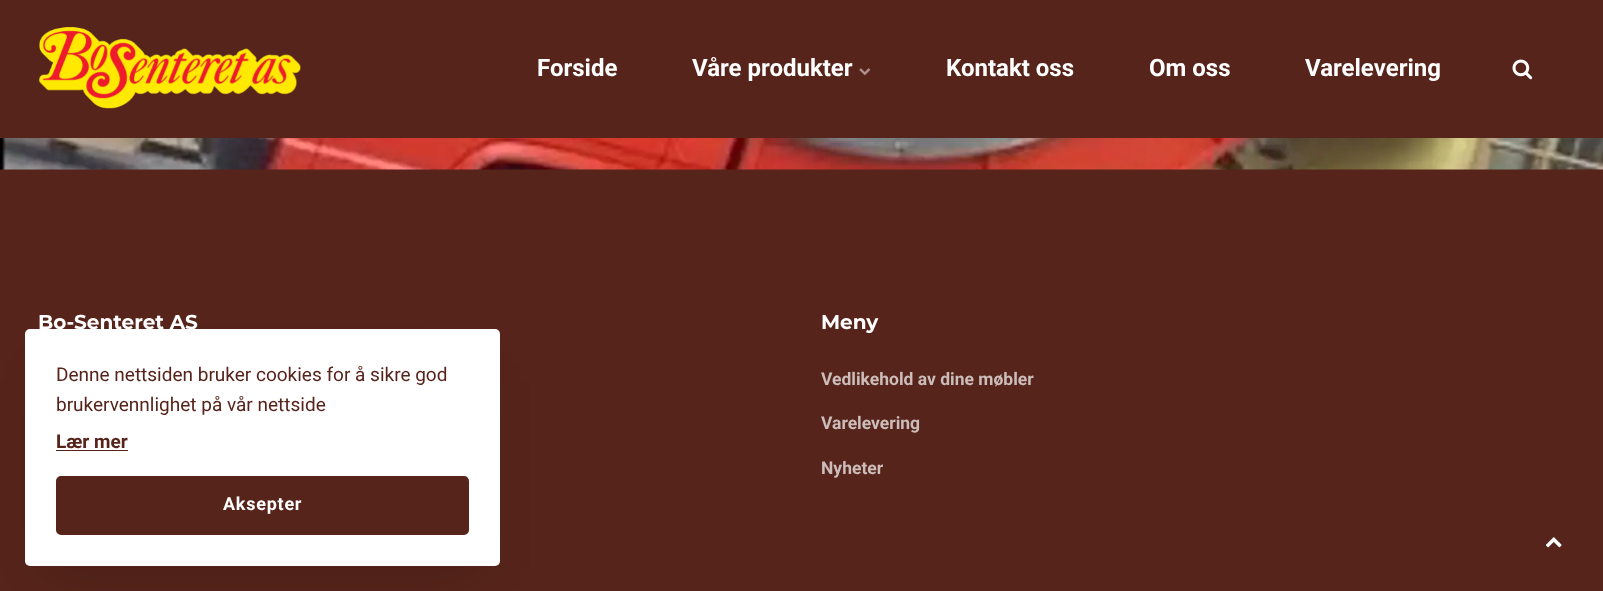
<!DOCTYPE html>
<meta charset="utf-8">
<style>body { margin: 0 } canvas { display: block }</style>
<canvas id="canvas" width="1603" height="591"></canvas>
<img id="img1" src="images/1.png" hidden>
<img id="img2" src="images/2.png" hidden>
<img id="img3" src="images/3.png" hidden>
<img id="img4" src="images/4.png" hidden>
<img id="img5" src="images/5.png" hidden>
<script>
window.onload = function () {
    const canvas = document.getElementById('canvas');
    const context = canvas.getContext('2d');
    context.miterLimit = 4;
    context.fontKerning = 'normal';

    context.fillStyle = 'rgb(86, 36, 27)';
    context.fillRect(0, 0, 1603, 591);
    context.drawImage(document.getElementById('img1'), 39, 27, 262, 82);
    context.drawImage(document.getElementById('img2'), 859, 68, 12, 8);
    context.drawImage(document.getElementById('img3'), 1512, 59, 21, 21);
    context.drawImage(document.getElementById('img4'), 0, 138, 1603, 32);
    context.fillStyle = 'rgba(0, 0, 0, 0.15)';
    context.filter = 'blur(27px)';
    context.beginPath();
    context.rect(50, 381, 425, 188);
    context.fill();
    context.filter = 'none';
    context.fillStyle = 'rgb(255, 255, 255)';
    context.beginPath();
    context.roundRect(25, 329, 475, 237, 5);
    context.fill();
    context.fillStyle = 'rgb(86, 36, 27)';
    context.fillRect(56, 450, 72, 1);
    context.beginPath();
    context.roundRect(57.5, 477.5, 410, 56, 3.5);
    context.fill();
    context.strokeStyle = 'rgb(86, 36, 27)';
    context.lineWidth = 3;
    context.stroke();
    context.drawImage(document.getElementById('img5'), 1545, 537, 17, 11);
    context.font = 'bold 24px Roboto';
    context.fillStyle = 'rgb(255, 255, 255)';
    context.fillText('Forside', 537, 76);
    context.fillText('Våre produkter', 692, 76);
    context.fillText('Kontakt oss', 946, 76);
    context.fillText('Om oss', 1149, 76);
    context.fillText('Varelevering', 1305, 76);
    context.font = 'bold 20px Montserrat';
    context.fillText('Bo-Senteret AS', 38, 329);
    context.fillText('Meny', 821, 329);
    context.font = 'bold 17.5px Roboto';
    context.fillStyle = 'rgb(204, 189, 187)';
    context.fillText('Vedlikehold av dine møbler', 821, 385);
    context.fillText('Varelevering', 821, 429);
    context.fillText('Nyheter', 821, 474);
    context.font = '19px Roboto';
    context.fillStyle = 'rgb(86, 36, 27)';
    context.fillText('Denne nettsiden bruker cookies for å sikre god', 56, 381);
    context.fillText('brukervennlighet på vår nettside', 56, 411);
    context.font = 'bold 19px Roboto';
    context.fillText('Lær mer', 56, 448);
    context.letterSpacing = '0.75px';
    context.font = 'bold 18px Roboto';
    context.fillStyle = 'rgb(255, 255, 255)';
    context.fillText('Aksepter', 223, 510);
};
</script>
